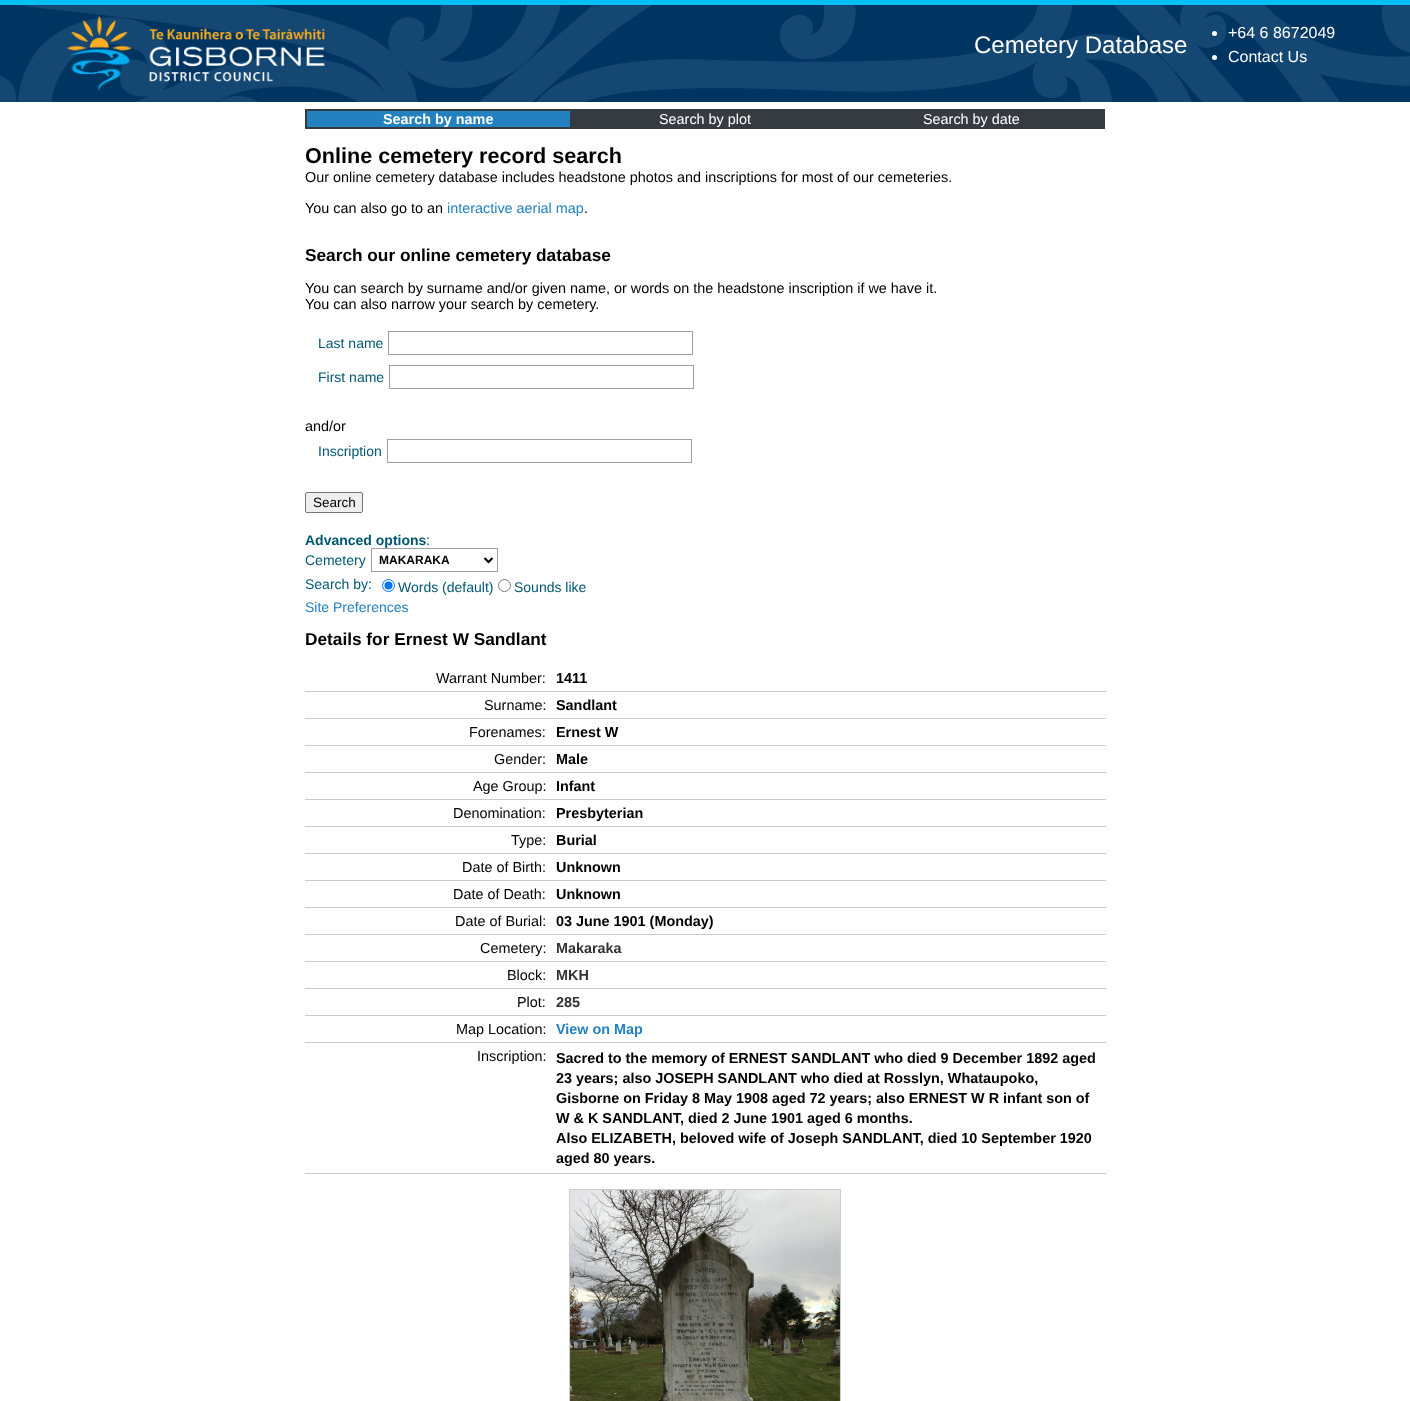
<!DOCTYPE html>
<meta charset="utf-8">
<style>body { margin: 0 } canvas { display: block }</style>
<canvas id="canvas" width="1410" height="1401"></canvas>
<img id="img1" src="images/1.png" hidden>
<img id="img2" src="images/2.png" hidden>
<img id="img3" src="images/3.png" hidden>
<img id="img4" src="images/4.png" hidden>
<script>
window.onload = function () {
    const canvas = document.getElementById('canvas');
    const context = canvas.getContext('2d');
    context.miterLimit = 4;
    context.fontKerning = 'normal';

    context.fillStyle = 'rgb(255, 255, 255)';
    context.fillRect(0, 0, 1410, 1401);
    context.drawImage(document.getElementById('img1'), 0, 5, 1410, 97);
    context.fillStyle = 'rgb(0, 192, 243)';
    context.fillRect(0, 0, 1410, 5);
    context.drawImage(document.getElementById('img2'), 67, 16, 65, 75);
    context.drawImage(document.getElementById('img3'), 149, 28, 176, 54);
    context.fillStyle = 'rgb(255, 255, 255)';
    context.beginPath();
    context.arc(1214.5, 33.5, 2.5, 0, 2 * Math.PI);
    context.fill();
    context.beginPath();
    context.arc(1214.5, 57.5, 2.5, 0, 2 * Math.PI);
    context.fill();
    context.fillStyle = 'rgb(53, 59, 65)';
    context.fillRect(572, 109, 533, 20);
    context.fillStyle = 'rgb(34, 129, 190)';
    context.beginPath();
    context.rect(306, 110, 265, 18);
    context.fill();
    context.strokeStyle = 'rgb(53, 59, 65)';
    context.lineWidth = 2;
    context.stroke();
    context.strokeStyle = 'rgb(158, 160, 161)';
    context.lineWidth = 1;
    context.strokeRect(388.5, 331.5, 304, 23);
    context.strokeRect(389.5, 365.5, 304, 23);
    context.strokeRect(387.5, 439.5, 304, 23);
    context.fillStyle = 'rgb(239, 239, 239)';
    context.beginPath();
    context.roundRect(305.5, 492.5, 57, 20, 1.5);
    context.fill();
    context.strokeStyle = 'rgb(118, 118, 118)';
    context.stroke();
    context.strokeStyle = 'rgb(158, 160, 161)';
    context.strokeRect(371.5, 548.5, 126, 23);
    context.beginPath();
    context.moveTo(484.5, 558);
    context.lineTo(488.5, 562);
    context.lineTo(492.5, 558);
    context.strokeStyle = 'rgb(0, 0, 0)';
    context.lineWidth = 2;
    context.stroke();
    context.beginPath();
    context.arc(388.5, 585.5, 6, 0, 2 * Math.PI);
    context.strokeStyle = 'rgb(0, 117, 255)';
    context.lineWidth = 1;
    context.stroke();
    context.fillStyle = 'rgb(0, 117, 255)';
    context.beginPath();
    context.arc(388.5, 585.5, 4, 0, 2 * Math.PI);
    context.fill();
    context.beginPath();
    context.arc(504.5, 585.5, 6, 0, 2 * Math.PI);
    context.strokeStyle = 'rgb(118, 118, 118)';
    context.stroke();
    context.fillStyle = 'rgb(204, 204, 204)';
    context.fillRect(305, 691, 801, 1);
    context.fillRect(305, 718, 801, 1);
    context.fillRect(305, 745, 801, 1);
    context.fillRect(305, 772, 801, 1);
    context.fillRect(305, 799, 801, 1);
    context.fillRect(305, 826, 801, 1);
    context.fillRect(305, 853, 801, 1);
    context.fillRect(305, 880, 801, 1);
    context.fillRect(305, 907, 801, 1);
    context.fillRect(305, 934, 801, 1);
    context.fillRect(305, 961, 801, 1);
    context.fillRect(305, 988, 801, 1);
    context.fillRect(305, 1015, 801, 1);
    context.fillRect(305, 1042, 801, 1);
    context.fillRect(305, 1173, 801, 1);
    context.strokeStyle = 'rgb(204, 204, 204)';
    context.strokeRect(569.5, 1189.5, 271, 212);
    context.drawImage(document.getElementById('img4'), 570, 1190, 270, 211);
    context.font = '24px Liberation Sans';
    context.fillStyle = 'rgb(255, 255, 255)';
    context.fillText('Cemetery Database', 974, 53);
    context.font = '16px Liberation Sans';
    context.fillText('+64 6 8672049', 1228, 38);
    context.fillText('Contact Us', 1228, 62);
    context.font = 'bold 14.4px Liberation Sans';
    context.fillText('Search by name', 383, 124);
    context.font = '14.4px Liberation Sans';
    context.fillText('Search by plot', 659, 124);
    context.fillText('Search by date', 923, 124);
    context.font = 'bold 21.6px Liberation Sans';
    context.fillStyle = 'rgb(0, 0, 0)';
    context.fillText('Online cemetery record search', 305, 163);
    context.font = '14.4px Liberation Sans';
    context.fillText('Our online cemetery database includes headstone photos and inscriptions for most of our cemeteries.', 305, 182);
    context.fillText('You can also go to an', 305, 213);
    context.fillStyle = 'rgb(34, 129, 190)';
    context.fillText('interactive aerial map', 447, 213);
    context.fillStyle = 'rgb(0, 0, 0)';
    context.fillText('.', 584, 213);
    context.font = 'bold 17.25px Liberation Sans';
    context.fillText('Search our online cemetery database', 305, 261);
    context.font = '14.4px Liberation Sans';
    context.fillText('You can search by surname and/or given name, or words on the headstone inscription if we have it.', 305, 293);
    context.fillText('You can also narrow your search by cemetery.', 305, 309);
    context.font = '14px Liberation Sans';
    context.fillStyle = 'rgb(0, 87, 113)';
    context.fillText('Last name', 318, 348);
    context.fillText('First name', 318, 382);
    context.font = '14.4px Liberation Sans';
    context.fillStyle = 'rgb(0, 0, 0)';
    context.fillText('and/or', 305, 431);
    context.font = '14px Liberation Sans';
    context.fillStyle = 'rgb(0, 87, 113)';
    context.fillText('Inscription', 318, 456);
    context.font = '13.5px Liberation Sans';
    context.fillStyle = 'rgb(0, 0, 0)';
    context.fillText('Search', 313, 507);
    context.font = 'bold 14px Liberation Sans';
    context.fillStyle = 'rgb(0, 87, 113)';
    context.fillText('Advanced options', 305, 545);
    context.font = '14px Liberation Sans';
    context.fillText(':', 426, 545);
    context.fillText('Cemetery', 305, 565);
    context.font = 'bold 12px Liberation Sans';
    context.fillStyle = 'rgb(0, 0, 0)';
    context.fillText('MAKARAKA', 379, 564);
    context.font = '14px Liberation Sans';
    context.fillStyle = 'rgb(0, 87, 113)';
    context.fillText('Search by:', 305, 589);
    context.fillText('Words (default)', 398, 592);
    context.fillText('Sounds like', 514, 592);
    context.fillStyle = 'rgb(34, 129, 190)';
    context.fillText('Site Preferences', 305, 612);
    context.font = 'bold 17.25px Liberation Sans';
    context.fillStyle = 'rgb(0, 0, 0)';
    context.fillText('Details for Ernest W Sandlant', 305, 645);
    context.font = '14.4px Liberation Sans';
    context.fillText('Warrant Number:', 436, 683);
    context.font = 'bold 14.4px Liberation Sans';
    context.fillText('1411', 556, 683);
    context.font = '14.4px Liberation Sans';
    context.fillText('Surname:', 484, 710);
    context.font = 'bold 14.4px Liberation Sans';
    context.fillText('Sandlant', 556, 710);
    context.font = '14.4px Liberation Sans';
    context.fillText('Forenames:', 469, 737);
    context.font = 'bold 14.4px Liberation Sans';
    context.fillText('Ernest W', 556, 737);
    context.font = '14.4px Liberation Sans';
    context.fillText('Gender:', 494, 764);
    context.font = 'bold 14.4px Liberation Sans';
    context.fillText('Male', 556, 764);
    context.font = '14.4px Liberation Sans';
    context.fillText('Age Group:', 473, 791);
    context.font = 'bold 14.4px Liberation Sans';
    context.fillText('Infant', 556, 791);
    context.font = '14.4px Liberation Sans';
    context.fillText('Denomination:', 453, 818);
    context.font = 'bold 14.4px Liberation Sans';
    context.fillText('Presbyterian', 556, 818);
    context.font = '14.4px Liberation Sans';
    context.fillText('Type:', 511, 845);
    context.font = 'bold 14.4px Liberation Sans';
    context.fillText('Burial', 556, 845);
    context.font = '14.4px Liberation Sans';
    context.fillText('Date of Birth:', 462, 872);
    context.font = 'bold 14.4px Liberation Sans';
    context.fillText('Unknown', 556, 872);
    context.font = '14.4px Liberation Sans';
    context.fillText('Date of Death:', 453, 899);
    context.font = 'bold 14.4px Liberation Sans';
    context.fillText('Unknown', 556, 899);
    context.font = '14.4px Liberation Sans';
    context.fillText('Date of Burial:', 455, 926);
    context.font = 'bold 14.4px Liberation Sans';
    context.fillText('03 June 1901 (Monday)', 556, 926);
    context.font = '14.4px Liberation Sans';
    context.fillText('Cemetery:', 480, 953);
    context.font = 'bold 14.4px Liberation Sans';
    context.fillStyle = 'rgb(51, 51, 51)';
    context.fillText('Makaraka', 556, 953);
    context.font = '14.4px Liberation Sans';
    context.fillStyle = 'rgb(0, 0, 0)';
    context.fillText('Block:', 507, 980);
    context.font = 'bold 14.4px Liberation Sans';
    context.fillStyle = 'rgb(51, 51, 51)';
    context.fillText('MKH', 556, 980);
    context.font = '14.4px Liberation Sans';
    context.fillStyle = 'rgb(0, 0, 0)';
    context.fillText('Plot:', 517, 1007);
    context.font = 'bold 14.4px Liberation Sans';
    context.fillStyle = 'rgb(51, 51, 51)';
    context.fillText('285', 556, 1007);
    context.font = '14.4px Liberation Sans';
    context.fillStyle = 'rgb(0, 0, 0)';
    context.fillText('Map Location:', 456, 1034);
    context.font = 'bold 14.4px Liberation Sans';
    context.fillStyle = 'rgb(34, 129, 190)';
    context.fillText('View on Map', 556, 1034);
    context.font = '14.4px Liberation Sans';
    context.fillStyle = 'rgb(0, 0, 0)';
    context.fillText('Inscription:', 477, 1061);
    context.font = 'bold 14.4px Liberation Sans';
    context.fillText('Sacred to the memory of ERNEST SANDLANT who died 9 December 1892 aged', 556, 1063);
    context.fillText('23 years; also JOSEPH SANDLANT who died at Rosslyn, Whataupoko,', 556, 1083);
    context.fillText('Gisborne on Friday 8 May 1908 aged 72 years; also ERNEST W R infant son of', 556, 1103);
    context.fillText('W & K SANDLANT, died 2 June 1901 aged 6 months.', 556, 1123);
    context.fillText('Also ELIZABETH, beloved wife of Joseph SANDLANT, died 10 September 1920', 556, 1143);
    context.fillText('aged 80 years.', 556, 1163);
};
</script>
